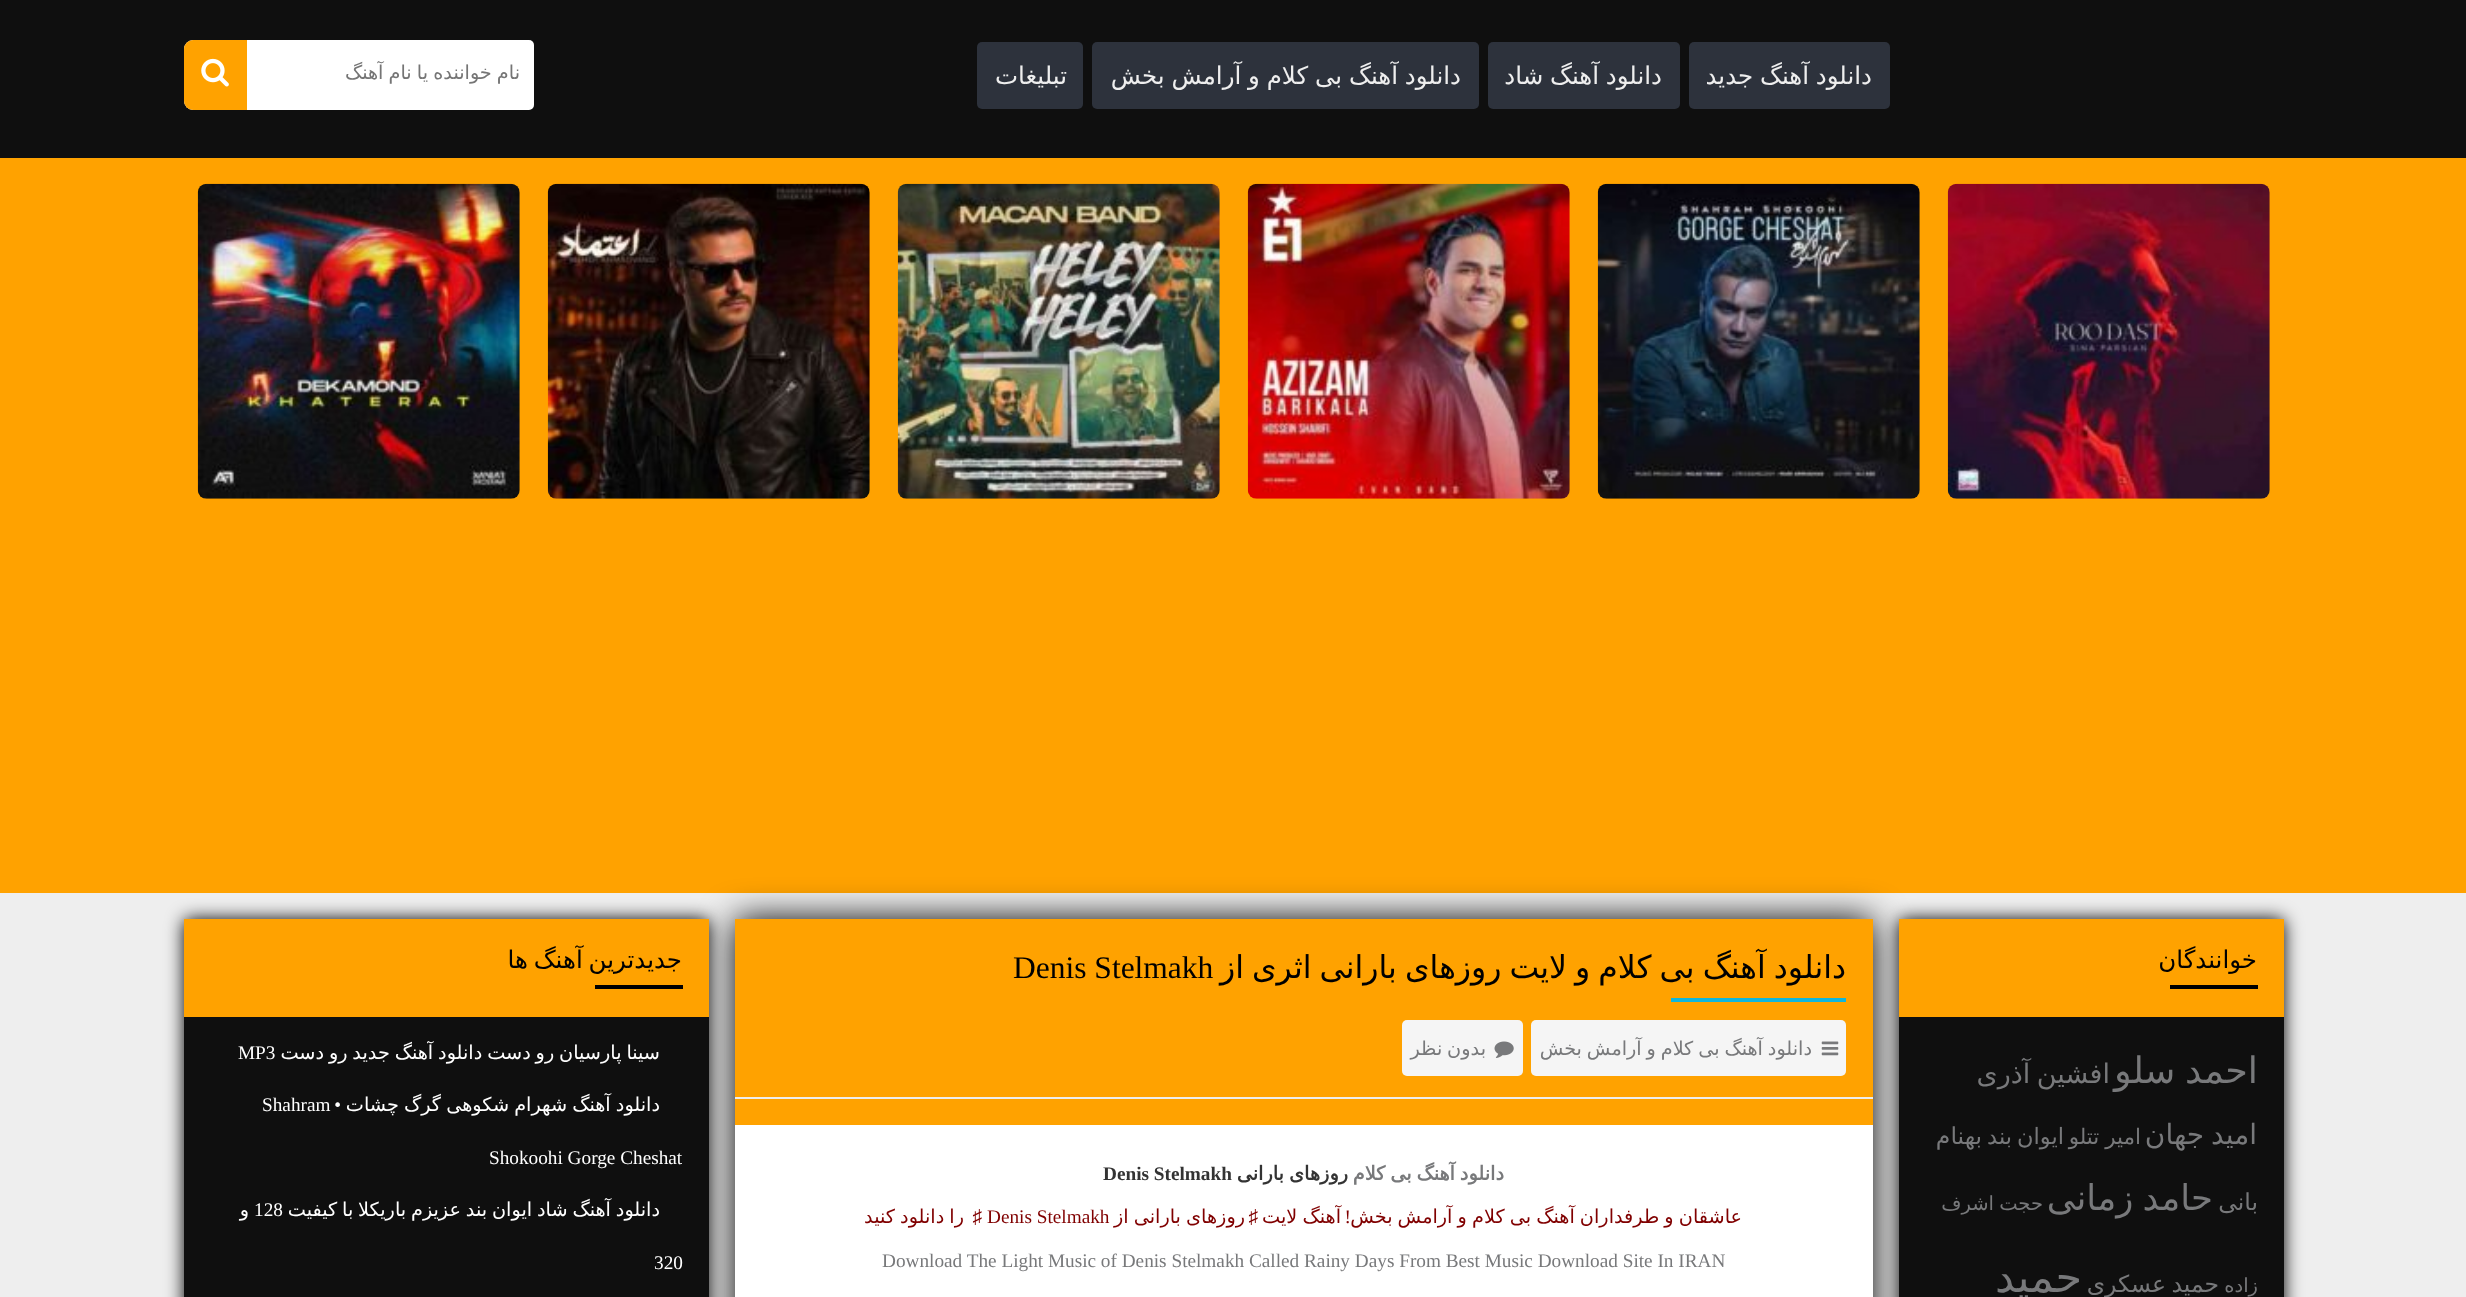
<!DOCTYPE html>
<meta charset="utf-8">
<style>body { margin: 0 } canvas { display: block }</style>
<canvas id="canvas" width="2466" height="1297"></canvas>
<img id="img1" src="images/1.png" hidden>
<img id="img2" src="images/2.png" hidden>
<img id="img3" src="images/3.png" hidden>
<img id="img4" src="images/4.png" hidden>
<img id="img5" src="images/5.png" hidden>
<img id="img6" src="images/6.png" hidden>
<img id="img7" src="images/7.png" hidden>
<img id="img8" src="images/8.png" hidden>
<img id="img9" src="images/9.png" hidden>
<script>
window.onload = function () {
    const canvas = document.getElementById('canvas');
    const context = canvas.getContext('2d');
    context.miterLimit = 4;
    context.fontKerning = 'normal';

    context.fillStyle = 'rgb(238, 238, 238)';
    context.fillRect(0, 0, 2466, 1297);
    context.fillStyle = 'rgb(15, 15, 15)';
    context.fillRect(0, 0, 2466, 158);
    context.fillStyle = 'rgb(45, 50, 60)';
    context.beginPath();
    context.roundRect(1689, 42, 201, 67, 5);
    context.fill();
    context.beginPath();
    context.roundRect(1488, 42, 192, 67, 5);
    context.fill();
    context.beginPath();
    context.roundRect(1092, 42, 387, 67, 5);
    context.fill();
    context.beginPath();
    context.roundRect(977, 42, 106, 67, 5);
    context.fill();
    context.fillStyle = 'rgb(255, 255, 255)';
    context.beginPath();
    context.roundRect(184, 40, 350, 70, [9, 5, 5, 9]);
    context.fill();
    context.fillStyle = 'rgb(255, 162, 0)';
    context.beginPath();
    context.roundRect(184, 40, 63, 70, [9, 0, 0, 9]);
    context.fill();
    context.drawImage(document.getElementById('img1'), 201, 58, 28, 29);
    context.fillRect(0, 158, 2466, 735);
    context.drawImage(document.getElementById('img2'), 1947, 183, 323, 316);
    context.drawImage(document.getElementById('img3'), 1597, 183, 323, 316);
    context.drawImage(document.getElementById('img4'), 1247, 183, 323, 316);
    context.drawImage(document.getElementById('img5'), 897, 183, 323, 316);
    context.drawImage(document.getElementById('img6'), 547, 183, 323, 316);
    context.drawImage(document.getElementById('img7'), 197, 183, 323, 316);
    context.fillStyle = 'rgb(0, 0, 0)';
    context.filter = 'blur(17.5px)';
    context.beginPath();
    context.roundRect(735, 919, 1138, 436, 5);
    context.fill();
    context.filter = 'none';
    context.fillStyle = 'rgb(255, 255, 255)';
    context.fillRect(735, 1125, 1138, 172);
    context.fillStyle = 'rgb(0, 0, 0)';
    context.filter = 'blur(9px)';
    context.beginPath();
    context.roundRect(1899, 919, 385, 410, 5);
    context.fill();
    context.filter = 'none';
    context.fillStyle = 'rgb(15, 15, 15)';
    context.fillRect(1899, 1017, 385, 280);
    context.fillStyle = 'rgb(255, 162, 0)';
    context.fillRect(1899, 919, 385, 98);
    context.fillStyle = 'rgb(0, 0, 0)';
    context.fillRect(2170, 985, 88, 4);
    context.fillStyle = 'rgb(255, 162, 0)';
    context.fillRect(735, 919, 1138, 206);
    context.fillStyle = 'rgb(16, 182, 219)';
    context.fillRect(1671, 998, 175, 4);
    context.fillStyle = 'rgb(238, 238, 238)';
    context.fillRect(735, 1097, 1138, 2);
    context.fillStyle = 'rgb(245, 245, 245)';
    context.beginPath();
    context.roundRect(1531, 1020, 315, 56, 5);
    context.fill();
    context.drawImage(document.getElementById('img8'), 1821, 1041, 18, 15);
    context.beginPath();
    context.roundRect(1402, 1020, 121, 56, 5);
    context.fill();
    context.drawImage(document.getElementById('img9'), 1494, 1041, 20, 17);
    context.fillStyle = 'rgb(0, 0, 0)';
    context.filter = 'blur(9px)';
    context.beginPath();
    context.roundRect(184, 919, 525, 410, 5);
    context.fill();
    context.filter = 'none';
    context.fillStyle = 'rgb(15, 15, 15)';
    context.fillRect(184, 1017, 525, 280);
    context.fillStyle = 'rgb(255, 162, 0)';
    context.fillRect(184, 919, 525, 98);
    context.fillStyle = 'rgb(0, 0, 0)';
    context.fillRect(595, 985, 88, 4);
    context.wordSpacing = '-1px';
    context.direction = 'rtl';
    context.font = '24.5px DejaVu Sans';
    context.fillStyle = 'rgb(238, 238, 238)';
    context.fillText('دانلود آهنگ جدید', 1872, 84);
    context.fillText('دانلود آهنگ شاد', 1662, 84);
    context.fillText('دانلود آهنگ بی کلام و آرامش بخش', 1461, 84);
    context.wordSpacing = '0px';
    context.fillText('تبلیغات', 1067, 84);
    context.wordSpacing = '-1px';
    context.font = '19.25px DejaVu Sans';
    context.fillStyle = 'rgb(117, 117, 117)';
    context.fillText('نام خواننده یا نام آهنگ', 520, 79);
    context.wordSpacing = '0px';
    context.font = '24.5px DejaVu Sans';
    context.fillStyle = 'rgb(0, 0, 0)';
    context.fillText('خوانندگان', 2257, 968);
    context.wordSpacing = '-2px';
    context.font = '36.5px DejaVu Sans';
    context.fillStyle = 'rgb(120, 121, 123)';
    context.fillText('احمد سلو', 2258, 1083);
    context.font = '27px DejaVu Sans';
    context.fillText('افشین آذری', 2110, 1083);
    context.font = '28px DejaVu Sans';
    context.fillText('امید جهان', 2257, 1144);
    context.wordSpacing = '-1px';
    context.font = '21.5px DejaVu Sans';
    context.fillText('امیر تتلو', 2141, 1144);
    context.wordSpacing = '-2px';
    context.font = '22.5px DejaVu Sans';
    context.fillText('ایوان بند', 2064, 1144);
    context.wordSpacing = '0px';
    context.font = '23.5px DejaVu Sans';
    context.fillText('بهنام', 1982, 1144);
    context.fillText('بانی', 2258, 1210);
    context.wordSpacing = '-2px';
    context.font = '35.5px DejaVu Sans';
    context.fillText('حامد زمانی', 2213, 1210);
    context.wordSpacing = '-1px';
    context.font = '19.5px DejaVu Sans';
    context.fillText('حجت اشرف', 2043, 1210);
    context.wordSpacing = '0px';
    context.fillText('زاده', 2258, 1292);
    context.wordSpacing = '-2px';
    context.font = '23.5px DejaVu Sans';
    context.fillText('حمید عسکری', 2219, 1292);
    context.wordSpacing = '0px';
    context.font = '43px DejaVu Sans';
    context.fillText('حمید', 2082, 1292);
    context.wordSpacing = '-2px';
    context.font = '31.5px DejaVu Sans';
    context.fillStyle = 'rgb(0, 0, 0)';
    context.fillText('دانلود آهنگ بی کلام و لایت روزهای بارانی اثری از', 1846, 978);
    context.wordSpacing = '0px';
    context.direction = 'ltr';
    context.font = '31.5px Liberation Serif';
    context.fillText('Denis Stelmakh', 1013, 978);
    context.wordSpacing = '-1.25px';
    context.direction = 'rtl';
    context.font = '19.25px DejaVu Sans';
    context.fillStyle = 'rgb(120, 121, 123)';
    context.fillText('دانلود آهنگ بی کلام و آرامش بخش', 1812, 1055);
    context.fillText('بدون نظر', 1486, 1055);
    context.font = 'bold 19.25px DejaVu Sans';
    context.fillText('دانلود آهنگ بی کلام', 1504, 1180);
    context.wordSpacing = '-1px';
    context.fillStyle = 'rgb(51, 51, 51)';
    context.fillText('روزهای بارانی', 1348, 1180);
    context.wordSpacing = '0px';
    context.direction = 'ltr';
    context.font = 'bold 19.25px Liberation Serif';
    context.fillText('Denis Stelmakh', 1103, 1180);
    context.wordSpacing = '-1px';
    context.direction = 'rtl';
    context.font = '19.25px DejaVu Sans';
    context.fillStyle = 'rgb(128, 0, 0)';
    context.fillText('عاشقان و طرفداران آهنگ بی کلام و آرامش بخش', 1742, 1223);
    context.wordSpacing = '0px';
    context.font = '19.25px Liberation Serif';
    context.fillText('!', 1351, 1223);
    context.wordSpacing = '-1px';
    context.font = '19.25px DejaVu Sans';
    context.fillText('آهنگ لایت', 1341, 1223);
    context.wordSpacing = '0px';
    context.font = '19.25px Liberation Serif';
    context.fillText('♯', 1258, 1223);
    context.wordSpacing = '-1px';
    context.font = '19.25px DejaVu Sans';
    context.fillText('روزهای بارانی از', 1245, 1223);
    context.wordSpacing = '0px';
    context.direction = 'ltr';
    context.font = '19.25px Liberation Serif';
    context.fillText('Denis Stelmakh', 987, 1223);
    context.direction = 'rtl';
    context.fillText('♯', 982, 1223);
    context.wordSpacing = '-1px';
    context.font = '19.25px DejaVu Sans';
    context.fillText('را دانلود کنید', 964, 1223);
    context.wordSpacing = '0px';
    context.direction = 'ltr';
    context.font = '19.25px Liberation Serif';
    context.fillStyle = 'rgb(120, 121, 123)';
    context.fillText('Download The Light Music of Denis Stelmakh Called Rainy Days From Best Music Download Site In IRAN', 882, 1267);
    context.wordSpacing = '-2px';
    context.direction = 'rtl';
    context.font = '24.5px DejaVu Sans';
    context.fillStyle = 'rgb(0, 0, 0)';
    context.fillText('جدیدترین آهنگ ها', 682, 968);
    context.wordSpacing = '-1.25px';
    context.font = '19.25px DejaVu Sans';
    context.fillStyle = 'rgb(255, 255, 255)';
    context.fillText('سینا پارسیان رو دست دانلود آهنگ جدید رو دست', 660, 1059);
    context.wordSpacing = '0px';
    context.direction = 'ltr';
    context.font = '19.25px Liberation Serif';
    context.fillText('MP3', 238, 1059);
    context.wordSpacing = '-1px';
    context.direction = 'rtl';
    context.font = '19.25px DejaVu Sans';
    context.fillText('دانلود آهنگ شهرام شکوهی گرگ چشات', 660, 1111);
    context.wordSpacing = '0px';
    context.font = '19.25px Liberation Serif';
    context.fillText('•', 341, 1111);
    context.direction = 'ltr';
    context.fillText('Shahram', 262, 1111);
    context.fillText('Shokoohi Gorge Cheshat', 489, 1164);
    context.wordSpacing = '-1.25px';
    context.direction = 'rtl';
    context.font = '19.25px DejaVu Sans';
    context.fillText('دانلود آهنگ شاد ایوان بند عزیزم باریکلا با کیفیت', 660, 1216);
    context.wordSpacing = '0px';
    context.direction = 'ltr';
    context.font = '19.25px Liberation Serif';
    context.fillText('128', 254, 1216);
    context.direction = 'rtl';
    context.font = '19.25px DejaVu Sans';
    context.fillText('و', 249, 1216);
    context.direction = 'ltr';
    context.font = '19.25px Liberation Serif';
    context.fillText('320', 654, 1269);
};
</script>
